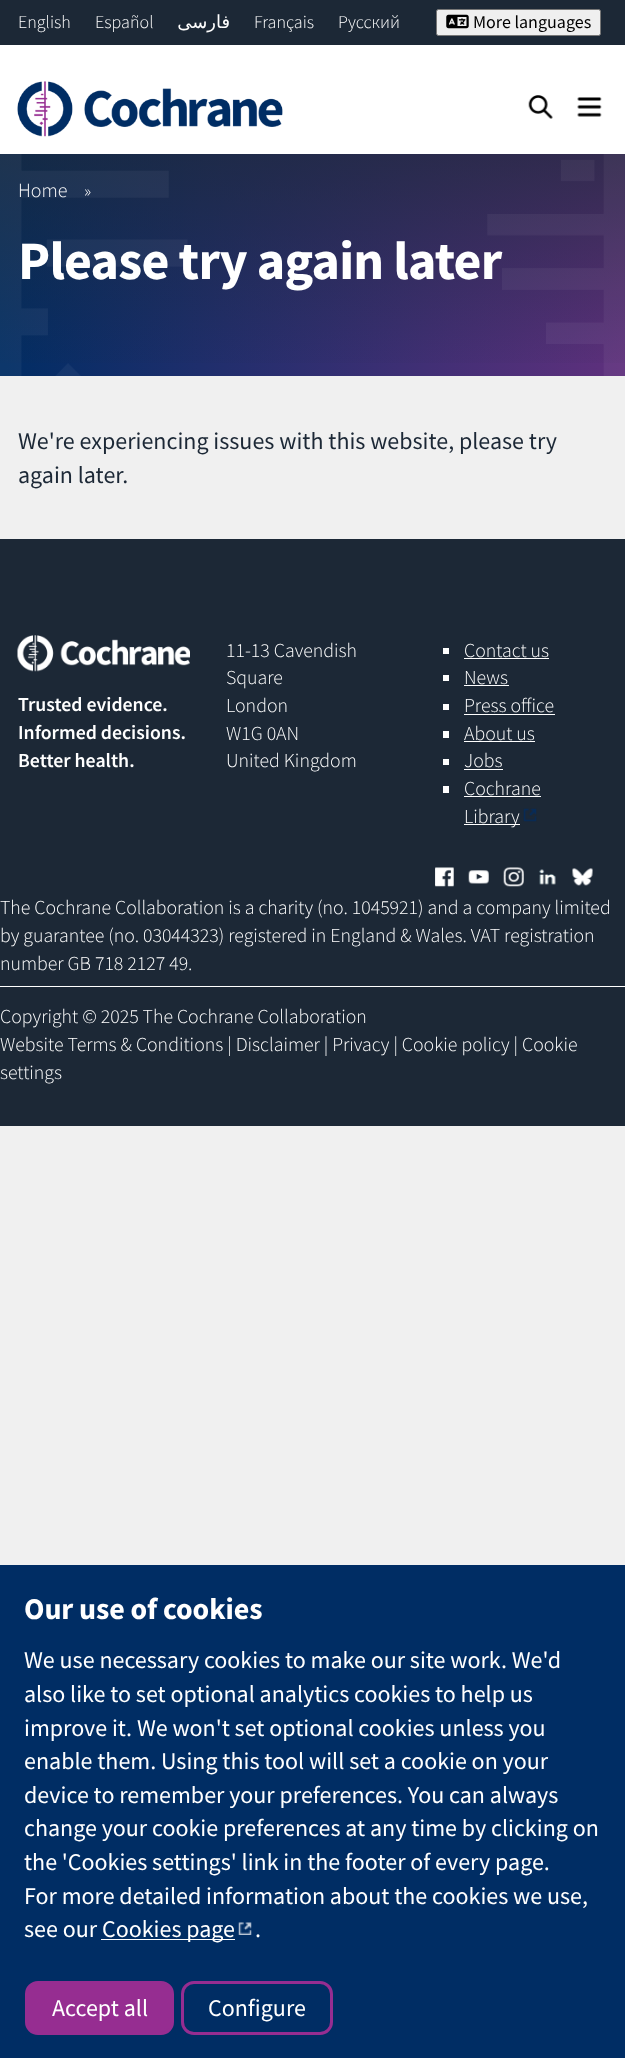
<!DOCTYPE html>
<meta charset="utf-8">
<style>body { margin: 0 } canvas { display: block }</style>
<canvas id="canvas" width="625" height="2058"></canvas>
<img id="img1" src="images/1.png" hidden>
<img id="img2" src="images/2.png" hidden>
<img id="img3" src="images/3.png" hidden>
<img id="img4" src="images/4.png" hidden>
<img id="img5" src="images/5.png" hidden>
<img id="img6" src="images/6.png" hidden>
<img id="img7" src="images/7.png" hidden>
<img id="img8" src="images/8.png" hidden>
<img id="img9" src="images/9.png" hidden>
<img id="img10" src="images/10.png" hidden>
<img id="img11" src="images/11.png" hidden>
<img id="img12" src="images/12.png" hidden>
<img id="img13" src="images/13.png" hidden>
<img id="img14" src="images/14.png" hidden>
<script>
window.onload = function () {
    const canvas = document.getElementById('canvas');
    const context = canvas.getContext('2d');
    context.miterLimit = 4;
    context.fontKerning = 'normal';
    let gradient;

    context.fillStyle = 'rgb(240, 240, 240)';
    context.fillRect(0, 0, 625, 2058);
    context.fillStyle = 'rgb(28, 40, 54)';
    context.fillRect(0, 0, 625, 45);
    context.fillStyle = 'rgb(255, 255, 255)';
    context.fillRect(0, 45, 625, 109);
    context.fillStyle = 'rgb(239, 239, 239)';
    context.beginPath();
    context.roundRect(436.5, 9.5, 164, 26, 2);
    context.fill();
    context.strokeStyle = 'rgb(118, 118, 118)';
    context.stroke();
    context.drawImage(document.getElementById('img1'), 446, 14, 23, 15);
    context.drawImage(document.getElementById('img2'), 17, 81, 266, 56);
    context.drawImage(document.getElementById('img3'), 528, 95, 25, 24);
    context.drawImage(document.getElementById('img4'), 577, 97, 25, 20);
    gradient = context.createLinearGradient(0, 265, 625, 265);
    gradient.addColorStop(0, 'rgb(0, 45, 100)');
    gradient.addColorStop(1, 'rgb(95, 48, 125)');
    context.fillStyle = gradient;
    context.fillRect(0, 154, 625, 222);
    gradient = context.createLinearGradient(313, 34, 313, 376);
    gradient.addColorStop(0, 'rgb(28, 40, 54)');
    gradient.addColorStop(1, 'rgba(28, 40, 54, 0)');
    context.fillStyle = gradient;
    context.fillRect(0, 154, 625, 209);
    context.drawImage(document.getElementById('img5'), 0, 154, 188, 222);
    context.drawImage(document.getElementById('img6'), 487, 154, 138, 222);
    context.fillStyle = 'rgb(28, 40, 54)';
    context.fillRect(0, 539, 625, 587);
    context.drawImage(document.getElementById('img7'), 17, 635, 173, 37);
    context.fillStyle = 'rgb(255, 255, 255)';
    context.fillRect(443, 648, 6, 6);
    context.fillRect(464, 658, 85, 1);
    context.fillRect(443, 675, 6, 6);
    context.fillRect(464, 685, 45, 1);
    context.fillRect(443, 704, 6, 6);
    context.fillRect(464, 714, 91, 1);
    context.fillRect(443, 731, 6, 7);
    context.fillRect(464, 741, 71, 1);
    context.fillRect(443, 759, 6, 6);
    context.fillRect(464, 769, 39, 1);
    context.fillRect(443, 786, 6, 7);
    context.fillRect(464, 796, 77, 1);
    context.fillRect(464, 824, 56, 1);
    context.drawImage(document.getElementById('img8'), 523, 808, 14, 14);
    context.drawImage(document.getElementById('img9'), 435, 867, 19, 20);
    context.drawImage(document.getElementById('img10'), 468, 870, 21, 14);
    context.drawImage(document.getElementById('img11'), 503, 867, 21, 20);
    context.drawImage(document.getElementById('img12'), 539, 869, 17, 16);
    context.drawImage(document.getElementById('img13'), 572, 868, 21, 18);
    context.fillRect(0, 986, 625, 1);
    context.fillStyle = 'rgb(0, 45, 100)';
    context.fillRect(0, 1565, 625, 493);
    context.fillStyle = 'rgb(255, 255, 255)';
    context.fillRect(101, 1939, 134, 1);
    context.drawImage(document.getElementById('img14'), 238, 1922, 14, 13);
    context.fillStyle = 'rgb(150, 45, 145)';
    context.beginPath();
    context.roundRect(26.5, 1982.5, 146, 51, 11.5);
    context.fill();
    context.strokeStyle = 'rgb(150, 45, 145)';
    context.lineWidth = 3;
    context.stroke();
    context.beginPath();
    context.roundRect(182.5, 1982.5, 149, 51, 11.5);
    context.stroke();
    context.font = '300 18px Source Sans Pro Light';
    context.fillStyle = 'rgb(255, 255, 255)';
    context.fillText('English', 18, 28);
    context.fillText('Español', 95, 28);
    context.direction = 'rtl';
    context.font = '18px DejaVu Sans';
    context.fillText('فارسی', 230, 28);
    context.direction = 'ltr';
    context.font = '300 18px Source Sans Pro Light';
    context.fillText('Français', 254, 28);
    context.fillText('Русский', 338, 28);
    context.font = '18px Source Sans Pro';
    context.fillStyle = 'rgb(0, 0, 0)';
    context.fillText('More languages', 473, 28);
    context.font = '300 20px Source Sans Pro Light';
    context.fillStyle = 'rgb(255, 255, 255)';
    context.fillText('Home', 18, 197);
    context.font = '300 18px Source Sans Pro Light';
    context.fillText('»', 84, 197);
    context.letterSpacing = '-0.8px';
    context.font = 'bold 54px Source Sans Pro';
    context.fillText('Please try again later', 18, 279);
    context.letterSpacing = '0px';
    context.font = '24px Source Sans Pro';
    context.fillStyle = 'rgb(28, 40, 54)';
    context.fillText('We\'re experiencing issues with this website, please try', 18, 449);
    context.fillText('again later.', 18, 483);
    context.font = '600 19.8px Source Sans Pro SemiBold';
    context.fillStyle = 'rgb(255, 255, 255)';
    context.fillText('Trusted evidence.', 18, 711);
    context.fillText('Informed decisions.', 18, 739);
    context.fillText('Better health.', 18, 767);
    context.font = '300 19.8px Source Sans Pro Light';
    context.fillText('11-13 Cavendish', 226, 657);
    context.fillText('Square', 226, 684);
    context.fillText('London', 226, 712);
    context.fillText('W1G 0AN', 226, 740);
    context.fillText('United Kingdom', 226, 767);
    context.fillText('Contact us', 464, 657);
    context.fillText('News', 464, 684);
    context.fillText('Press office', 464, 712);
    context.fillText('About us', 464, 740);
    context.fillText('Jobs', 464, 767);
    context.fillText('Cochrane', 464, 795);
    context.fillText('Library', 464, 823);
    context.fillText('The Cochrane Collaboration is a charity (no. 1045921) and a company limited', 0, 914);
    context.fillText('by guarantee (no. 03044323) registered in England & Wales. VAT registration', 0, 942);
    context.fillText('number GB 718 2127 49.', 0, 970);
    context.fillText('Copyright © 2025 The Cochrane Collaboration', 0, 1023);
    context.fillText('Website Terms & Conditions | Disclaimer | Privacy | Cookie policy | Cookie', 0, 1051);
    context.fillText('settings', 0, 1079);
    context.letterSpacing = '-0.1px';
    context.font = 'bold 30px Source Sans Pro';
    context.fillText('Our use of cookies', 24, 1619);
    context.letterSpacing = '0px';
    context.font = '24px Source Sans Pro';
    context.fillText('We use necessary cookies to make our site work. We\'d', 24, 1668);
    context.fillText('also like to set optional analytics cookies to help us', 24, 1702);
    context.fillText('improve it. We won\'t set optional cookies unless you', 24, 1736);
    context.fillText('enable them. Using this tool will set a cookie on your', 24, 1769);
    context.fillText('device to remember your preferences. You can always', 24, 1803);
    context.fillText('change your cookie preferences at any time by clicking on', 24, 1836);
    context.fillText('the \'Cookies settings\' link in the footer of every page.', 24, 1870);
    context.fillText('For more detailed information about the cookies we use,', 24, 1904);
    context.fillText('see our', 24, 1937);
    context.fillText('Cookies page', 102, 1937);
    context.fillText('.', 255, 1937);
    context.fillText('Accept all', 52, 2016);
    context.fillText('Configure', 208, 2016);
};
</script>
